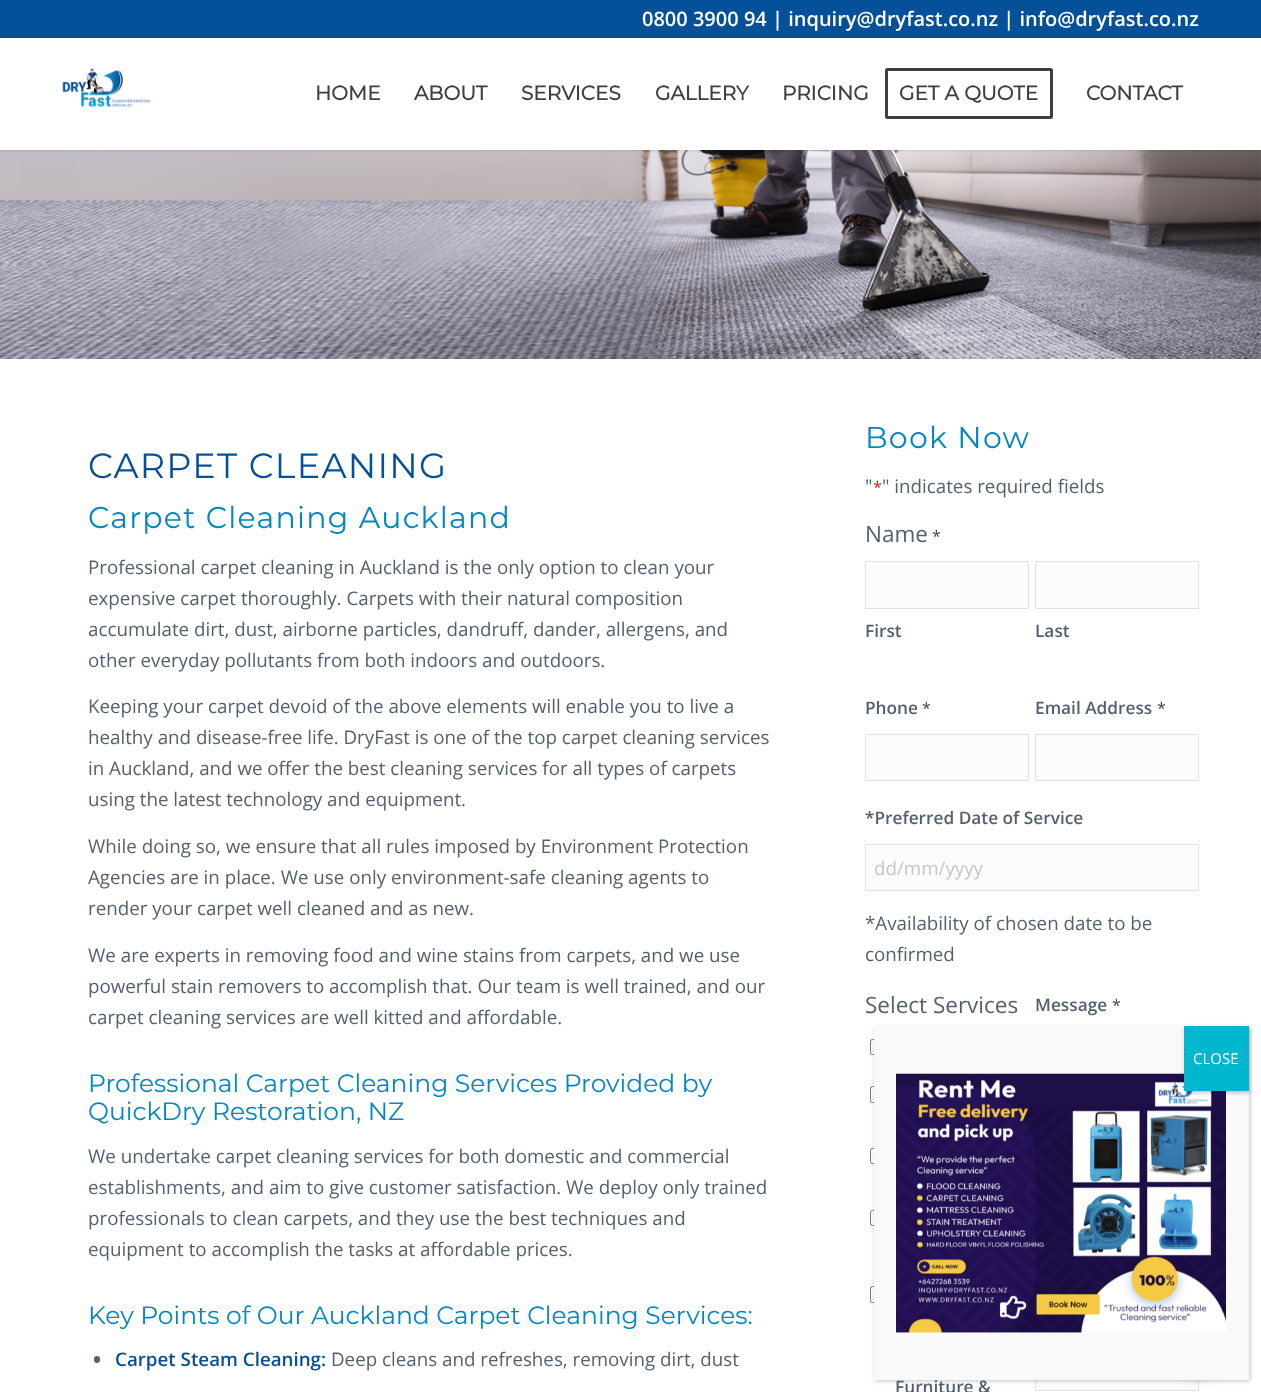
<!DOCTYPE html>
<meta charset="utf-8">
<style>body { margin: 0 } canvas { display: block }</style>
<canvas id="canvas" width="1261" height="1392"></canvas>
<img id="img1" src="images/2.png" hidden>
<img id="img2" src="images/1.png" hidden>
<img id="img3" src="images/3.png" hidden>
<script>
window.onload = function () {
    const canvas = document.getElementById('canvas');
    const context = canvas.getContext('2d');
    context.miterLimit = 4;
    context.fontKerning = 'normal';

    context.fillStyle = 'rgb(255, 255, 255)';
    context.fillRect(0, 0, 1261, 1392);
    context.drawImage(document.getElementById('img1'), 0, 150, 1261, 209);
    context.fillStyle = 'rgba(0, 0, 0, 0.1)';
    context.filter = 'blur(1px)';
    context.beginPath();
    context.rect(-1, -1, 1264, 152);
    context.fill();
    context.filter = 'none';
    context.fillStyle = 'rgb(4, 81, 153)';
    context.fillRect(0, 0, 1261, 38);
    context.fillStyle = 'rgb(255, 255, 255)';
    context.fillRect(0, 38, 1261, 112);
    context.drawImage(document.getElementById('img2'), 62, 68, 88, 40);
    context.beginPath();
    context.roundRect(886.5, 69.5, 165, 48, 1);
    context.strokeStyle = 'rgb(61, 64, 66)';
    context.lineWidth = 3;
    context.stroke();
    context.fillStyle = 'rgb(85, 96, 110)';
    context.beginPath();
    context.roundRect(94, 1356, 6, 7, 3);
    context.fill();
    context.fillStyle = 'rgb(252, 252, 252)';
    context.beginPath();
    context.rect(865.5, 561.5, 163, 47);
    context.fill();
    context.strokeStyle = 'rgb(225, 225, 225)';
    context.lineWidth = 1;
    context.stroke();
    context.beginPath();
    context.rect(1035.5, 561.5, 163, 47);
    context.fill();
    context.stroke();
    context.beginPath();
    context.rect(865.5, 734.5, 163, 46);
    context.fill();
    context.stroke();
    context.beginPath();
    context.rect(1035.5, 734.5, 163, 46);
    context.fill();
    context.stroke();
    context.beginPath();
    context.rect(865.5, 844.5, 333, 46);
    context.fill();
    context.stroke();
    context.beginPath();
    context.roundRect(870.5, 1039.5, 15, 15, 2);
    context.strokeStyle = 'rgb(118, 118, 118)';
    context.stroke();
    context.beginPath();
    context.roundRect(870.5, 1086.5, 15, 16, 2);
    context.stroke();
    context.beginPath();
    context.roundRect(870.5, 1148.5, 15, 15, 2);
    context.stroke();
    context.beginPath();
    context.roundRect(870.5, 1210.5, 15, 15, 2);
    context.stroke();
    context.beginPath();
    context.roundRect(870.5, 1286.5, 15, 16, 2);
    context.stroke();
    context.fillRect(1036, 1380, 162, 10);
    context.strokeStyle = 'rgb(225, 225, 225)';
    context.strokeRect(1035.5, 1031.5, 163, 359);
    context.fillStyle = 'rgba(2, 2, 2, 0.23)';
    context.filter = 'blur(2px)';
    context.beginPath();
    context.rect(875, 1028, 375, 353);
    context.fill();
    context.filter = 'none';
    context.fillStyle = 'rgba(0, 0, 0, 0.15)';
    context.filter = 'blur(5px)';
    context.beginPath();
    context.roundRect(1159, 1298, 80, 80, 40);
    context.fill();
    context.filter = 'none';
    context.fillStyle = 'rgb(249, 249, 249)';
    context.fillRect(874, 1026, 375, 354);
    context.drawImage(document.getElementById('img3'), 896, 1073, 330, 260);
    context.fillStyle = 'rgba(2, 2, 2, 0.23)';
    context.filter = 'blur(2px)';
    context.beginPath();
    context.rect(1185, 1028, 65, 65);
    context.fill();
    context.filter = 'none';
    context.fillStyle = 'rgb(0, 183, 205)';
    context.fillRect(1184, 1026, 65, 65);
    context.font = '600 20px Open Sans';
    context.fillStyle = 'rgb(255, 255, 255)';
    context.fillText('0800 3900 94 | inquiry@dryfast.co.nz | info@dryfast.co.nz', 642, 26);
    context.font = 'bold 20px Montserrat';
    context.fillStyle = 'rgb(61, 64, 66)';
    context.fillText('HOME', 315, 100);
    context.fillText('ABOUT', 414, 100);
    context.fillText('SERVICES', 521, 100);
    context.fillText('GALLERY', 655, 100);
    context.fillText('PRICING', 782, 100);
    context.fillText('GET A QUOTE', 899, 100);
    context.fillText('CONTACT', 1086, 100);
    context.letterSpacing = '1.25px';
    context.font = '100 35px Montserrat';
    context.fillStyle = 'rgb(4, 81, 153)';
    context.fillText('CARPET CLEANING', 88, 478);
    context.font = '100 30px Montserrat';
    context.fillStyle = 'rgb(4, 135, 191)';
    context.fillText('Carpet Cleaning Auckland', 88, 528);
    context.letterSpacing = '0px';
    context.font = '18.75px Open Sans';
    context.fillStyle = 'rgb(85, 96, 110)';
    context.fillText('Professional carpet cleaning in Auckland is the only option to clean your', 88, 574);
    context.fillText('expensive carpet thoroughly. Carpets with their natural composition', 88, 605);
    context.fillText('accumulate dirt, dust, airborne particles, dandruff, dander, allergens, and', 88, 636);
    context.fillText('other everyday pollutants from both indoors and outdoors.', 88, 667);
    context.fillText('Keeping your carpet devoid of the above elements will enable you to live a', 88, 713);
    context.fillText('healthy and disease-free life. DryFast is one of the top carpet cleaning services', 88, 744);
    context.fillText('in Auckland, and we offer the best cleaning services for all types of carpets', 88, 775);
    context.fillText('using the latest technology and equipment.', 88, 806);
    context.fillText('While doing so, we ensure that all rules imposed by Environment Protection', 88, 853);
    context.fillText('Agencies are in place. We use only environment-safe cleaning agents to', 88, 884);
    context.fillText('render your carpet well cleaned and as new.', 88, 915);
    context.fillText('We are experts in removing food and wine stains from carpets, and we use', 88, 962);
    context.fillText('powerful stain removers to accomplish that. Our team is well trained, and our', 88, 993);
    context.fillText('carpet cleaning services are well kitted and affordable.', 88, 1024);
    context.font = '100 25px Montserrat';
    context.fillStyle = 'rgb(4, 135, 191)';
    context.fillText('Professional Carpet Cleaning Services Provided by', 88, 1092);
    context.fillText('QuickDry Restoration, NZ', 88, 1120);
    context.font = '18.75px Open Sans';
    context.fillStyle = 'rgb(85, 96, 110)';
    context.fillText('We undertake carpet cleaning services for both domestic and commercial', 88, 1163);
    context.fillText('establishments, and aim to give customer satisfaction. We deploy only trained', 88, 1194);
    context.fillText('professionals to clean carpets, and they use the best techniques and', 88, 1225);
    context.fillText('equipment to accomplish the tasks at affordable prices.', 88, 1256);
    context.font = '100 25px Montserrat';
    context.fillStyle = 'rgb(4, 135, 191)';
    context.fillText('Key Points of Our Auckland Carpet Cleaning Services:', 88, 1324);
    context.font = '600 18.75px Open Sans';
    context.fillStyle = 'rgb(4, 81, 153)';
    context.fillText('Carpet Steam Cleaning:', 115, 1366);
    context.font = '18.75px Open Sans';
    context.fillStyle = 'rgb(85, 96, 110)';
    context.fillText('Deep cleans and refreshes, removing dirt, dust', 331, 1366);
    context.letterSpacing = '1.25px';
    context.font = '100 30px Montserrat';
    context.fillStyle = 'rgb(4, 135, 191)';
    context.fillText('Book Now', 865, 448);
    context.letterSpacing = '0px';
    context.font = '18.75px Open Sans';
    context.fillStyle = 'rgb(85, 96, 110)';
    context.fillText('"', 865, 493);
    context.font = '16px Open Sans';
    context.fillStyle = 'rgb(192, 43, 10)';
    context.fillText('*', 873, 493);
    context.font = '18.75px Open Sans';
    context.fillStyle = 'rgb(85, 96, 110)';
    context.fillText('" indicates required fields', 882, 493);
    context.font = '22.5px Open Sans';
    context.fillText('Name', 865, 542);
    context.font = '16px Open Sans';
    context.fillStyle = 'rgb(68, 68, 68)';
    context.fillText('*', 932, 542);
    context.font = '600 17.25px Open Sans';
    context.fillStyle = 'rgb(85, 96, 110)';
    context.fillText('First', 865, 637);
    context.fillText('Last', 1035, 637);
    context.fillText('Phone', 865, 714);
    context.font = '16px Open Sans';
    context.fillStyle = 'rgb(68, 68, 68)';
    context.fillText('*', 922, 714);
    context.font = '600 17.25px Open Sans';
    context.fillStyle = 'rgb(85, 96, 110)';
    context.fillText('Email Address', 1035, 714);
    context.font = '16px Open Sans';
    context.fillStyle = 'rgb(68, 68, 68)';
    context.fillText('*', 1157, 714);
    context.font = '600 17.25px Open Sans';
    context.fillStyle = 'rgb(85, 96, 110)';
    context.fillText('*Preferred Date of Service', 865, 824);
    context.font = '18.75px Open Sans';
    context.fillStyle = 'rgb(194, 198, 201)';
    context.fillText('dd/mm/yyyy', 874, 875);
    context.fillStyle = 'rgb(85, 96, 110)';
    context.fillText('*Availability of chosen date to be', 865, 930);
    context.fillText('confirmed', 865, 961);
    context.font = '22.5px Open Sans';
    context.fillText('Select Services', 865, 1013);
    context.font = '600 17.25px Open Sans';
    context.fillText('Furniture &', 895, 1393);
    context.fillText('Message', 1035, 1011);
    context.font = '16px Open Sans';
    context.fillStyle = 'rgb(68, 68, 68)';
    context.fillText('*', 1112, 1011);
    context.font = '15px Open Sans';
    context.fillStyle = 'rgb(255, 255, 255)';
    context.fillText('CLOSE', 1193, 1064);
};
</script>
